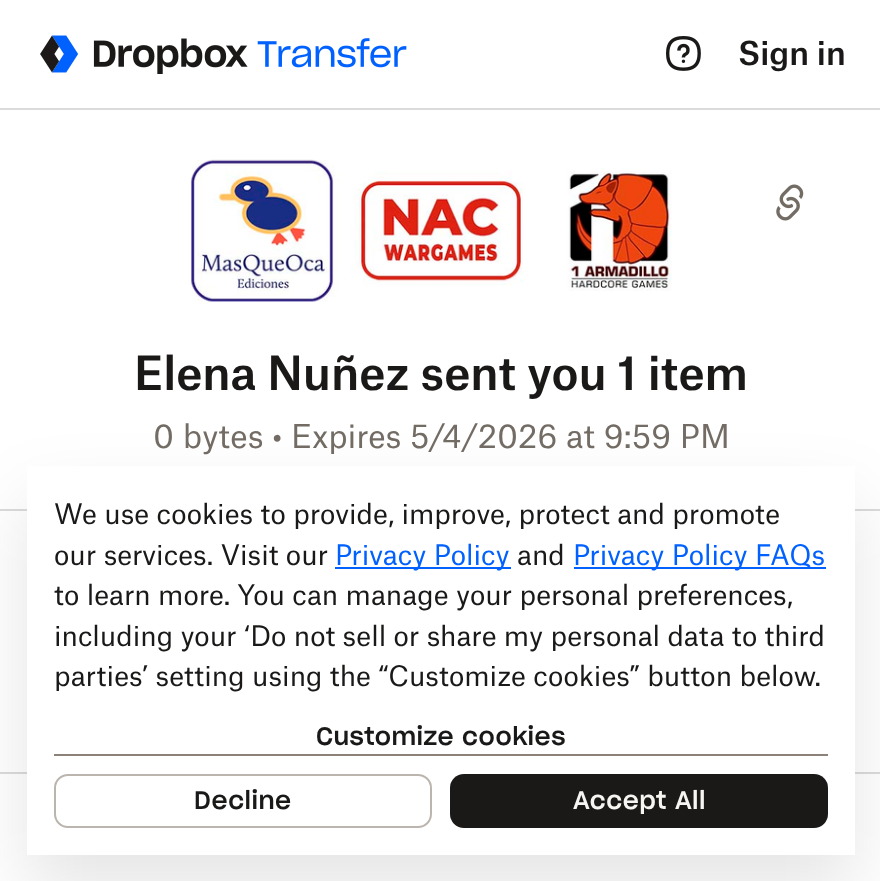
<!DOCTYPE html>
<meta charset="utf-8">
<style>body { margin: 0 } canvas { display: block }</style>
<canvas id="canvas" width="880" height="881"></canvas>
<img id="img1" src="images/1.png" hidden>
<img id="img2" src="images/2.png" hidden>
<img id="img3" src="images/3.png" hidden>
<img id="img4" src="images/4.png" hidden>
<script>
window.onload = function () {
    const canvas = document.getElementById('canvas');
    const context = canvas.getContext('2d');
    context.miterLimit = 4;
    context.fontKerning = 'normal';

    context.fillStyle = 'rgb(255, 255, 255)';
    context.fillRect(0, 0, 880, 881);
    context.fillStyle = 'rgb(219, 219, 219)';
    context.fillRect(0, 108, 880, 2);
    context.drawImage(document.getElementById('img1'), 40, 35, 367, 39);
    context.drawImage(document.getElementById('img2'), 666, 36, 35, 35);
    context.fillRect(0, 509, 880, 2);
    context.drawImage(document.getElementById('img3'), 191, 159, 481, 143);
    context.drawImage(document.getElementById('img4'), 776, 184, 28, 37);
    context.fillRect(0, 772, 880, 2);
    context.save();
    context.beginPath();
    context.moveTo(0, 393);
    context.lineTo(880, 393);
    context.lineTo(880, 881);
    context.lineTo(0, 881);
    context.closePath();
    context.moveTo(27, 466);
    context.lineTo(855, 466);
    context.lineTo(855, 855);
    context.lineTo(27, 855);
    context.closePath();
    context.clip('evenodd');
    context.fillStyle = 'rgba(0, 0, 0, 0.1)';
    context.filter = 'blur(36px)';
    context.beginPath();
    context.rect(27, 502, 828, 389);
    context.fill();
    context.filter = 'none';
    context.restore();
    context.fillStyle = 'rgb(255, 255, 255)';
    context.beginPath();
    context.roundRect(27, 466, 828, 389, 18);
    context.fill();
    context.fillStyle = 'rgb(0, 97, 254)';
    context.fillRect(335, 567, 176, 2);
    context.fillRect(574, 567, 252, 2);
    context.fillStyle = 'rgb(140, 130, 121)';
    context.fillRect(54, 754, 774, 2);
    context.beginPath();
    context.roundRect(55, 775, 376, 52, 13);
    context.strokeStyle = 'rgb(187, 181, 174)';
    context.lineWidth = 2;
    context.stroke();
    context.fillStyle = 'rgb(26, 25, 24)';
    context.beginPath();
    context.roundRect(450, 774, 378, 54, 14);
    context.fill();
    context.font = '500 31.5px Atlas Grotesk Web';
    context.fillText('Sign in', 738, 65);
    context.font = '500 45px Atlas Grotesk Web';
    context.fillText('Elena Nuñez sent you 1 item', 134, 390);
    context.font = '31.5px Atlas Grotesk Web';
    context.fillStyle = 'rgb(115, 108, 100)';
    context.fillText('0 bytes • Expires 5/4/2026 at 9:59 PM', 153, 448);
    context.font = '27px "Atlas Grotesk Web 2"';
    context.fillStyle = 'rgb(26, 25, 24)';
    context.fillText('We use cookies to provide, improve, protect and promote', 54, 524);
    context.fillText('our services. Visit our', 54, 565);
    context.fillStyle = 'rgb(0, 97, 254)';
    context.fillText('Privacy Policy', 335, 565);
    context.fillStyle = 'rgb(26, 25, 24)';
    context.fillText('and', 517, 565);
    context.fillStyle = 'rgb(0, 97, 254)';
    context.fillText('Privacy Policy FAQs', 573, 565);
    context.fillStyle = 'rgb(26, 25, 24)';
    context.fillText('to learn more. You can manage your personal preferences,', 54, 605);
    context.fillText('including your ‘Do not sell or share my personal data to third', 54, 646);
    context.fillText('parties’ setting using the “Customize cookies” button below.', 54, 686);
    context.letterSpacing = '0.5px';
    context.font = '500 24.75px "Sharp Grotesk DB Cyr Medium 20"';
    context.fillText('Customize cookies', 316, 745);
    context.fillText('Decline', 194, 809);
    context.fillStyle = 'rgb(247, 245, 242)';
    context.fillText('Accept All', 573, 809);
};
</script>
